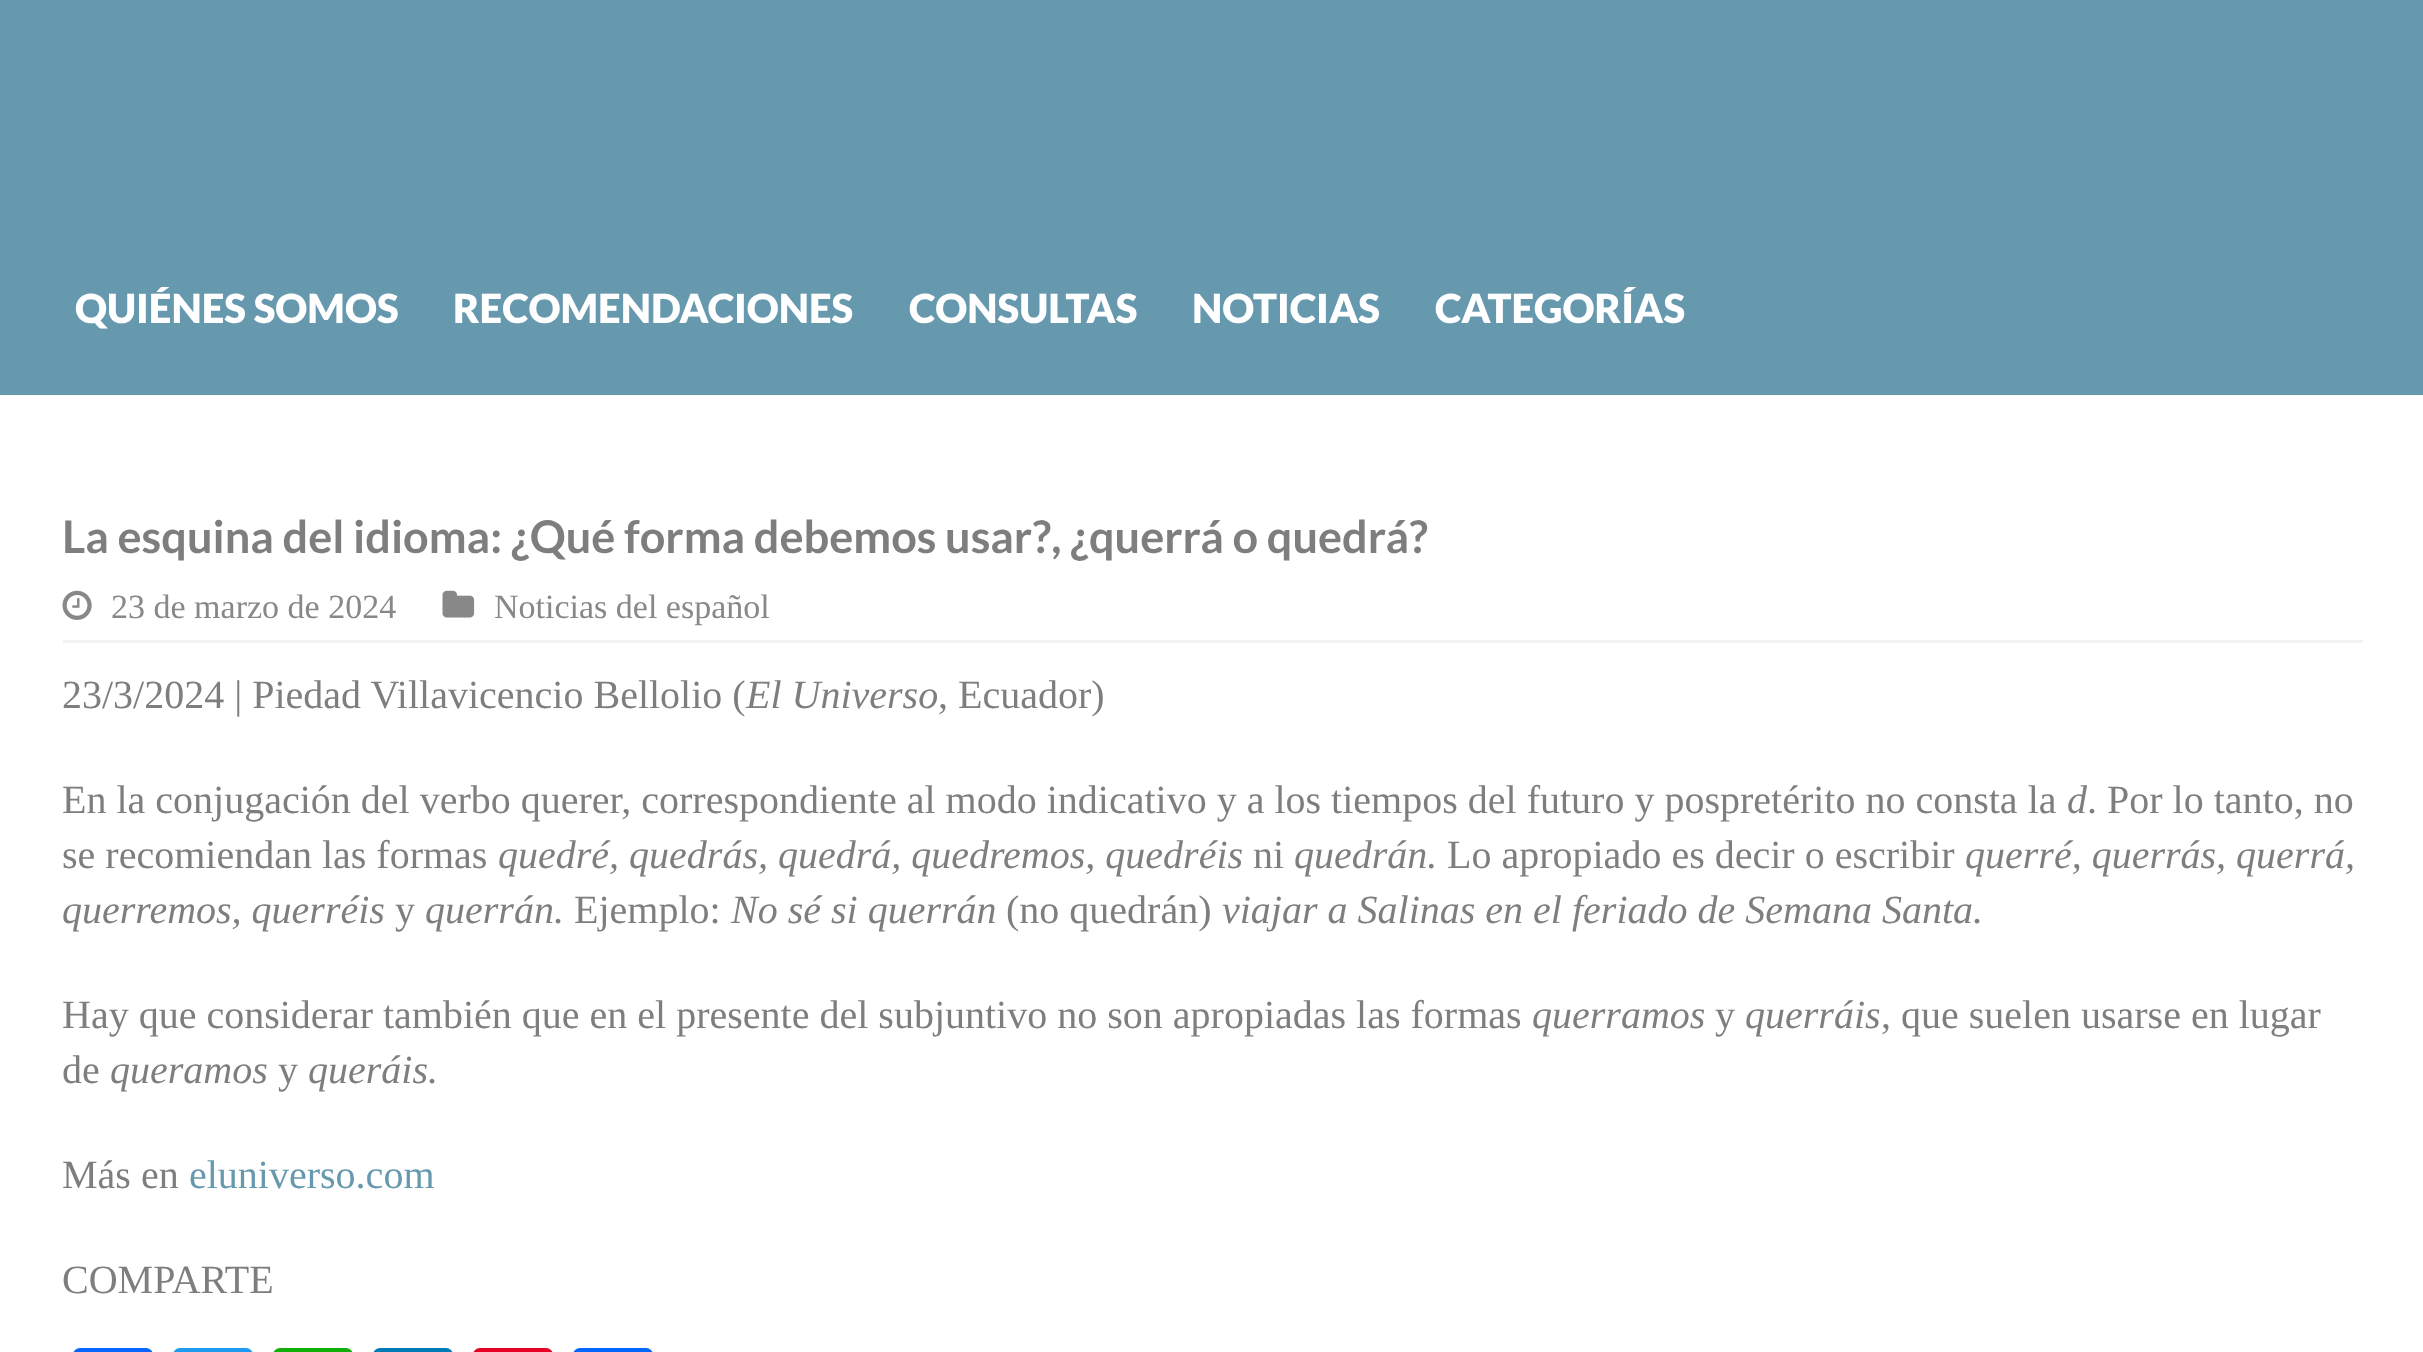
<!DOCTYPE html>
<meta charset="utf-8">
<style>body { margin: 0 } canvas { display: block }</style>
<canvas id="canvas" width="2423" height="1352"></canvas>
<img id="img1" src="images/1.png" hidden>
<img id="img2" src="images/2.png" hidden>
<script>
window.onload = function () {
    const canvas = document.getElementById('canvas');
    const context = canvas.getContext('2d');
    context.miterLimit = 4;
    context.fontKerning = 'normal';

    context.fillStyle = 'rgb(255, 255, 255)';
    context.fillRect(0, 0, 2423, 1352);
    context.fillStyle = 'rgb(102, 152, 174)';
    context.fillRect(0, 0, 2423, 395);
    context.fillStyle = 'rgb(242, 242, 242)';
    context.fillRect(63, 640, 2300, 3);
    context.drawImage(document.getElementById('img1'), 62, 590, 30, 30);
    context.drawImage(document.getElementById('img2'), 442, 590, 33, 28);
    context.fillStyle = 'rgb(8, 102, 255)';
    context.beginPath();
    context.roundRect(73, 1348, 80, 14, 10);
    context.fill();
    context.fillStyle = 'rgb(29, 155, 240)';
    context.beginPath();
    context.roundRect(173, 1348, 80, 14, 10);
    context.fill();
    context.fillStyle = 'rgb(18, 175, 10)';
    context.beginPath();
    context.roundRect(273, 1348, 80, 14, 10);
    context.fill();
    context.fillStyle = 'rgb(0, 123, 181)';
    context.beginPath();
    context.roundRect(373, 1348, 80, 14, 10);
    context.fill();
    context.fillStyle = 'rgb(230, 0, 35)';
    context.beginPath();
    context.roundRect(473, 1348, 80, 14, 10);
    context.fill();
    context.fillStyle = 'rgb(1, 102, 255)';
    context.beginPath();
    context.roundRect(573, 1348, 80, 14, 10);
    context.fill();
    context.font = '900 40px Lato';
    context.fillStyle = 'rgb(255, 255, 255)';
    context.fillText('QUIÉNES SOMOS', 75, 323);
    context.fillText('RECOMENDACIONES', 453, 323);
    context.fillText('CONSULTAS', 909, 323);
    context.fillText('NOTICIAS', 1192, 323);
    context.fillText('CATEGORÍAS', 1435, 323);
    context.font = 'bold 45px Lato';
    context.fillStyle = 'rgb(126, 126, 126)';
    context.fillText('La esquina del idioma: ¿Qué forma debemos usar?, ¿querrá o quedrá?', 62, 553);
    context.font = '34px Tinos';
    context.fillStyle = 'rgb(136, 136, 136)';
    context.fillText('23 de marzo de 2024', 111, 618);
    context.fillText('Noticias del español', 494, 618);
    context.font = '40px Tinos';
    context.fillStyle = 'rgb(126, 126, 126)';
    context.fillText('23/3/2024 | Piedad Villavicencio Bellolio (', 62, 708);
    context.font = 'italic 40px Tinos';
    context.fillText('El Universo', 746, 708);
    context.font = '40px Tinos';
    context.fillText(', Ecuador)', 938, 708);
    context.fillText('En la conjugación del verbo querer, correspondiente al modo indicativo y a los tiempos del futuro y pospretérito no consta la', 62, 813);
    context.font = 'italic 40px Tinos';
    context.fillText('d', 2067, 813);
    context.font = '40px Tinos';
    context.fillText('. Por lo tanto, no', 2087, 813);
    context.fillText('se recomiendan las formas', 62, 868);
    context.font = 'italic 40px Tinos';
    context.fillText('quedré, quedrás, quedrá, quedremos, quedréis', 498, 868);
    context.font = '40px Tinos';
    context.fillText('ni', 1253, 868);
    context.font = 'italic 40px Tinos';
    context.fillText('quedrán.', 1294, 868);
    context.font = '40px Tinos';
    context.fillText('Lo apropiado es decir o escribir', 1447, 868);
    context.font = 'italic 40px Tinos';
    context.fillText('querré, querrás, querrá,', 1965, 868);
    context.fillText('querremos, querréis', 62, 923);
    context.font = '40px Tinos';
    context.fillText('y', 395, 923);
    context.font = 'italic 40px Tinos';
    context.fillText('querrán.', 425, 923);
    context.font = '40px Tinos';
    context.fillText('Ejemplo:', 574, 923);
    context.font = 'italic 40px Tinos';
    context.fillText('No sé si querrán', 731, 923);
    context.font = '40px Tinos';
    context.fillText('(no quedrán)', 1006, 923);
    context.font = 'italic 40px Tinos';
    context.fillText('viajar a Salinas en el feriado de Semana Santa.', 1222, 923);
    context.font = '40px Tinos';
    context.fillText('Hay que considerar también que en el presente del subjuntivo no son apropiadas las formas', 62, 1028);
    context.font = 'italic 40px Tinos';
    context.fillText('querramos', 1532, 1028);
    context.font = '40px Tinos';
    context.fillText('y', 1715, 1028);
    context.font = 'italic 40px Tinos';
    context.fillText('querráis', 1745, 1028);
    context.font = '40px Tinos';
    context.fillText(', que suelen usarse en lugar', 1881, 1028);
    context.fillText('de', 62, 1083);
    context.font = 'italic 40px Tinos';
    context.fillText('queramos', 110, 1083);
    context.font = '40px Tinos';
    context.fillText('y', 278, 1083);
    context.font = 'italic 40px Tinos';
    context.fillText('queráis.', 308, 1083);
    context.font = '40px Tinos';
    context.fillText('Más en', 62, 1188);
    context.fillStyle = 'rgb(102, 152, 174)';
    context.fillText('eluniverso.com', 189, 1188);
    context.fillStyle = 'rgb(126, 126, 126)';
    context.fillText('COMPARTE', 62, 1293);
};
</script>
